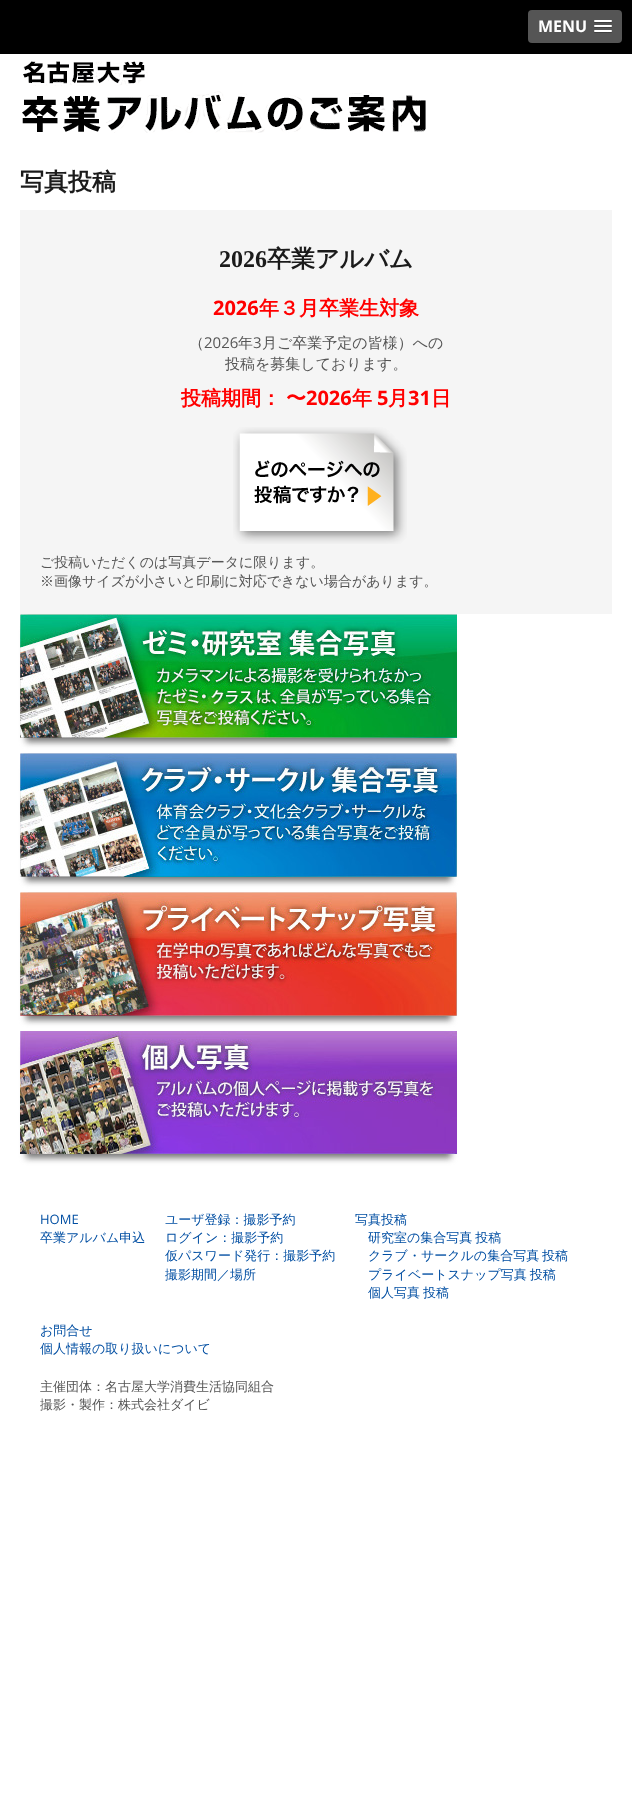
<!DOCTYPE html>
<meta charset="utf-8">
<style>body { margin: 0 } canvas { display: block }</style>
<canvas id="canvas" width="632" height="1796"></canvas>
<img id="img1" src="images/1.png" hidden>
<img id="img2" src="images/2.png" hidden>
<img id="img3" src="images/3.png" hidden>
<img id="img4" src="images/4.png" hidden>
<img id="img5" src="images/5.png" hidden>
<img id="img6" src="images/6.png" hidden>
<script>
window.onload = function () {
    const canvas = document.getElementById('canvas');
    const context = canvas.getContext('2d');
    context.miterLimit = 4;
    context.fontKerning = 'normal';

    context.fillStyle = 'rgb(255, 255, 255)';
    context.fillRect(0, 0, 632, 1796);
    context.fillStyle = 'rgb(0, 0, 0)';
    context.fillRect(0, 0, 632, 54);
    context.fillStyle = 'rgb(85, 85, 85)';
    context.beginPath();
    context.roundRect(528, 10, 94, 33, 4);
    context.fill();
    context.fillStyle = 'rgb(64, 64, 64)';
    context.beginPath();
    context.moveTo(594, 21.5);
    context.bezierCurveTo(593, 23.5, 597.5, 23, 597.5, 23);
    context.lineTo(608.5, 23);
    context.bezierCurveTo(608.5, 23, 613, 23.5, 612, 21.5);
    context.bezierCurveTo(611, 22.5, 604.5, 22, 603, 22);
    context.bezierCurveTo(601.5, 22, 595, 22.5, 594, 21.5);
    context.closePath();
    context.fill();
    context.fillStyle = 'rgb(255, 255, 255)';
    context.beginPath();
    context.roundRect(594, 20, 18, 2, 1);
    context.fill();
    context.fillStyle = 'rgb(64, 64, 64)';
    context.beginPath();
    context.moveTo(594, 26.5);
    context.bezierCurveTo(593, 28.5, 597.5, 28, 597.5, 28);
    context.lineTo(608.5, 28);
    context.bezierCurveTo(608.5, 28, 613, 28.5, 612, 26.5);
    context.bezierCurveTo(611, 27.5, 604.5, 27, 603, 27);
    context.bezierCurveTo(601.5, 27, 595, 27.5, 594, 26.5);
    context.closePath();
    context.fill();
    context.fillStyle = 'rgb(255, 255, 255)';
    context.beginPath();
    context.roundRect(594, 25, 18, 2, 1);
    context.fill();
    context.fillStyle = 'rgb(64, 64, 64)';
    context.beginPath();
    context.moveTo(594, 31.5);
    context.bezierCurveTo(593, 33.5, 597.5, 33, 597.5, 33);
    context.lineTo(608.5, 33);
    context.bezierCurveTo(608.5, 33, 613, 33.5, 612, 31.5);
    context.bezierCurveTo(611, 32.5, 604.5, 32, 603, 32);
    context.bezierCurveTo(601.5, 32, 595, 32.5, 594, 31.5);
    context.closePath();
    context.fill();
    context.fillStyle = 'rgb(255, 255, 255)';
    context.beginPath();
    context.roundRect(594, 30, 18, 2, 1);
    context.fill();
    context.drawImage(document.getElementById('img1'), 22, 61, 404, 72);
    context.fillStyle = 'rgb(245, 245, 245)';
    context.fillRect(20, 210, 592, 404);
    context.drawImage(document.getElementById('img2'), 233, 427, 174, 117);
    context.fillStyle = 'rgb(119, 119, 119)';
    context.filter = 'blur(3px)';
    context.beginPath();
    context.rect(26, 630, 425, 112);
    context.fill();
    context.filter = 'none';
    context.drawImage(document.getElementById('img3'), 20, 614, 437, 124);
    context.filter = 'blur(3px)';
    context.beginPath();
    context.rect(26, 769, 425, 112);
    context.fill();
    context.filter = 'none';
    context.drawImage(document.getElementById('img4'), 20, 753, 437, 124);
    context.filter = 'blur(3px)';
    context.beginPath();
    context.rect(26, 908, 425, 112);
    context.fill();
    context.filter = 'none';
    context.drawImage(document.getElementById('img5'), 20, 892, 437, 124);
    context.filter = 'blur(3px)';
    context.beginPath();
    context.rect(26, 1047, 425, 111);
    context.fill();
    context.filter = 'none';
    context.drawImage(document.getElementById('img6'), 20, 1031, 437, 123);
    context.font = 'bold 16px Open Sans';
    context.fillStyle = 'rgb(255, 255, 255)';
    context.fillText('MENU', 538, 32);
    context.font = 'bold 24px WenQuanYi Zen Hei';
    context.fillStyle = 'rgb(27, 27, 27)';
    context.fillText('写真投稿', 20, 190);
    context.font = 'bold 24px Liberation Serif';
    context.fillText('2026', 219, 267);
    context.font = 'bold 24px WenQuanYi Zen Hei';
    context.fillText('卒業アルバム', 267, 267);
    context.font = 'bold 20px Open Sans';
    context.fillStyle = 'rgb(255, 0, 0)';
    context.fillText('2026', 213, 315);
    context.font = 'bold 20px WenQuanYi Zen Hei';
    context.fillText('年３月卒業生対象', 259, 315);
    context.font = '500 15px WenQuanYi Zen Hei';
    context.fillStyle = 'rgb(85, 85, 85)';
    context.fillText('（', 189, 348);
    context.font = '15px Open Sans';
    context.fillText('2026', 204, 348);
    context.font = '500 15px WenQuanYi Zen Hei';
    context.fillText('年', 238, 348);
    context.font = '15px Open Sans';
    context.fillText('3', 253, 348);
    context.font = '500 15px WenQuanYi Zen Hei';
    context.fillText('月ご卒業予定の皆様）への', 262, 348);
    context.fillText('投稿を募集しております。', 225, 369);
    context.font = 'bold 20px WenQuanYi Zen Hei';
    context.fillStyle = 'rgb(255, 0, 0)';
    context.fillText('投稿期間：', 181, 405);
    context.fillText('〜', 286, 405);
    context.font = 'bold 20px Open Sans';
    context.fillText('2026', 306, 405);
    context.font = 'bold 20px WenQuanYi Zen Hei';
    context.fillText('年', 352, 405);
    context.font = 'bold 20px Open Sans';
    context.fillText('5', 377, 405);
    context.font = 'bold 20px WenQuanYi Zen Hei';
    context.fillText('月', 388, 405);
    context.font = 'bold 20px Open Sans';
    context.fillText('31', 408, 405);
    context.font = 'bold 20px WenQuanYi Zen Hei';
    context.fillText('日', 431, 405);
    context.font = '500 14px WenQuanYi Zen Hei';
    context.fillStyle = 'rgb(85, 85, 85)';
    context.fillText('ご投稿いただくのは写真データに限ります。', 40, 567);
    context.fillText('※画像サイズが小さいと印刷に対応できない場合があります。', 40, 586);
    context.font = '13px Open Sans';
    context.fillStyle = 'rgb(0, 78, 162)';
    context.fillText('HOME', 40, 1224);
    context.font = '500 13px WenQuanYi Zen Hei';
    context.fillText('卒業アルバム申込', 40, 1242);
    context.fillText('ユーザ登録：撮影予約', 165, 1224);
    context.fillText('ログイン：撮影予約', 165, 1242);
    context.fillText('仮パスワード発行：撮影予約', 165, 1260);
    context.fillText('撮影期間／場所', 165, 1279);
    context.fillText('写真投稿', 355, 1224);
    context.wordSpacing = '-1px';
    context.fillText('研究室の集合写真 投稿', 368, 1242);
    context.fillText('クラブ・サークルの集合写真 投稿', 368, 1260);
    context.fillText('プライベートスナップ写真 投稿', 368, 1279);
    context.fillText('個人写真 投稿', 368, 1297);
    context.wordSpacing = '0px';
    context.fillText('お問合せ', 40, 1335);
    context.fillText('個人情報の取り扱いについて', 40, 1353);
    context.fillStyle = 'rgb(85, 85, 85)';
    context.fillText('主催団体：名古屋大学消費生活協同組合', 40, 1391);
    context.fillText('撮影・製作：株式会社ダイビ', 40, 1409);
};
</script>
